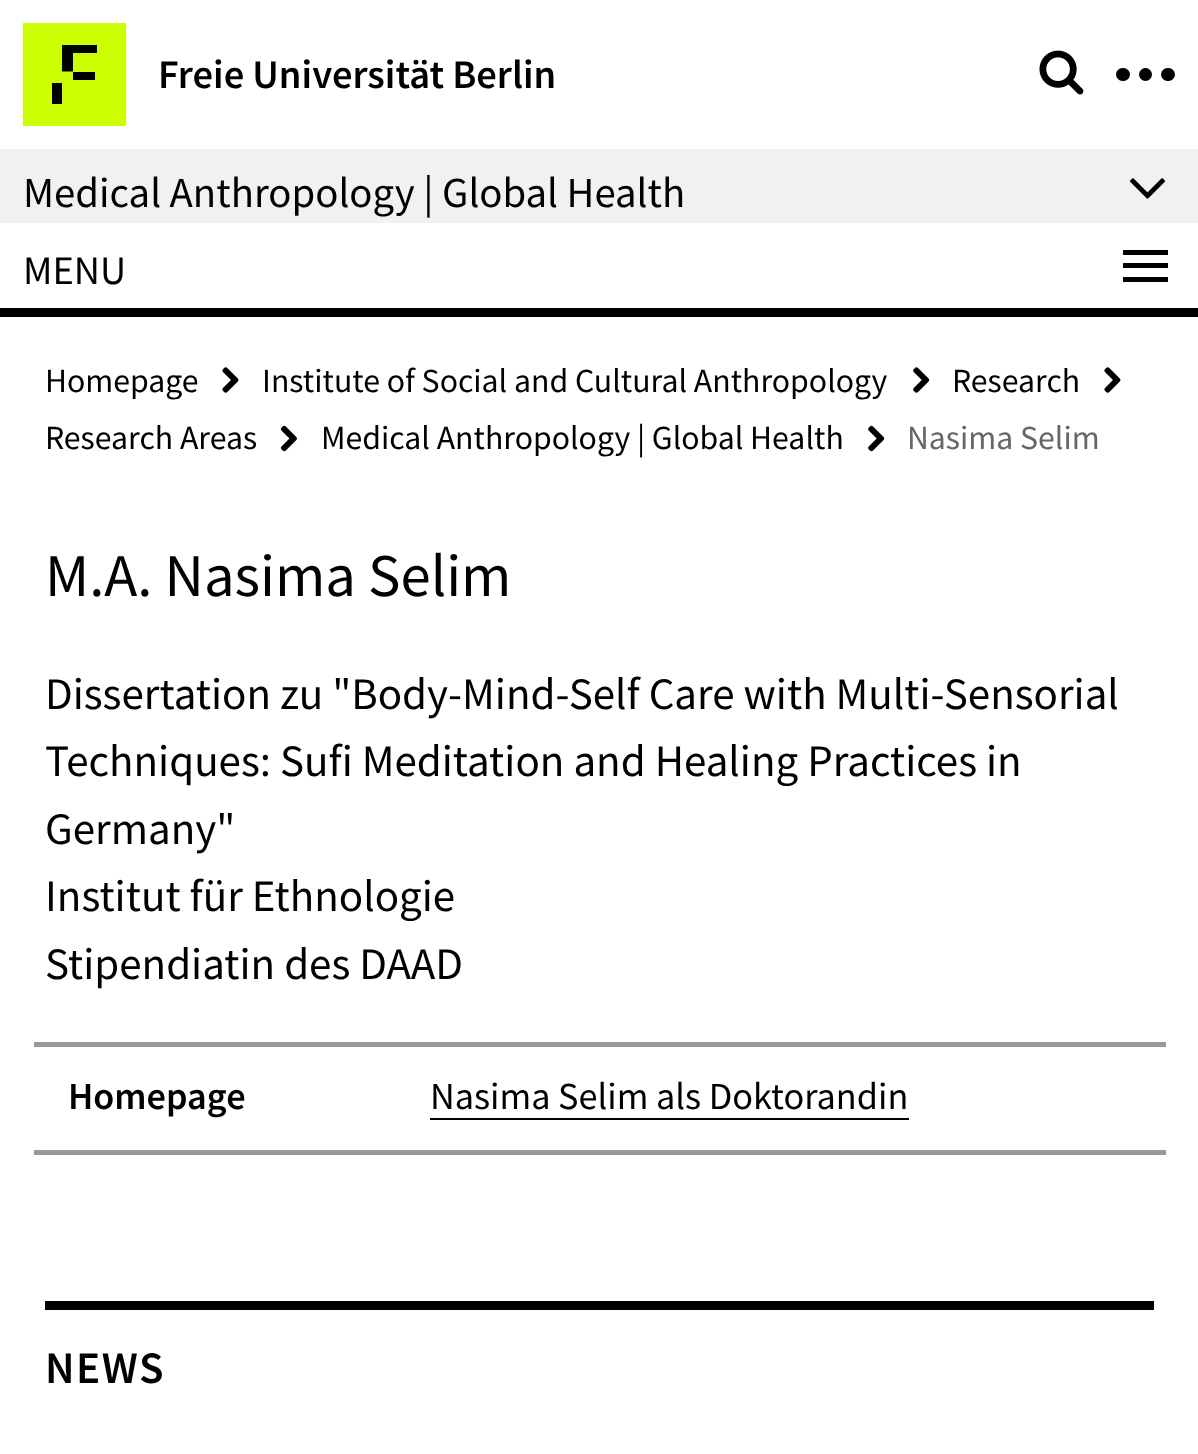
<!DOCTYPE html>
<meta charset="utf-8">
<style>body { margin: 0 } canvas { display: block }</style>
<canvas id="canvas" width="1198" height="1454"></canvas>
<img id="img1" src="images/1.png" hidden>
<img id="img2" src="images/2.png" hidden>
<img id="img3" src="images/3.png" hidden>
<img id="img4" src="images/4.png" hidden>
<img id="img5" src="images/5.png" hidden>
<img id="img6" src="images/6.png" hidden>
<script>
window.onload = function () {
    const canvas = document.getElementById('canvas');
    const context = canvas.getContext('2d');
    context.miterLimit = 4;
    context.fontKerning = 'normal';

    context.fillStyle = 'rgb(255, 255, 255)';
    context.fillRect(0, 0, 1198, 1454);
    context.fillStyle = 'rgb(204, 255, 0)';
    context.fillRect(23, 23, 103, 103);
    context.fillStyle = 'rgb(0, 0, 0)';
    context.beginPath();
    context.moveTo(62, 45);
    context.lineTo(97, 45);
    context.lineTo(97, 53);
    context.lineTo(73, 53);
    context.lineTo(73, 71.5);
    context.lineTo(62, 71.5);
    context.closePath();
    context.fill();
    context.fillRect(73, 72, 22, 8);
    context.fillRect(52, 83, 10, 21);
    context.drawImage(document.getElementById('img1'), 1039, 50, 45, 45);
    context.beginPath();
    context.roundRect(1116, 68, 14, 13, 6.5);
    context.fill();
    context.beginPath();
    context.arc(1145.5, 74.5, 6.5, 0, 2 * Math.PI);
    context.fill();
    context.beginPath();
    context.roundRect(1161, 68, 14, 13, 6.5);
    context.fill();
    context.fillStyle = 'rgb(241, 241, 241)';
    context.fillRect(0, 149, 1198, 74);
    context.drawImage(document.getElementById('img2'), 1130, 178, 35, 21);
    context.fillStyle = 'rgb(0, 0, 0)';
    context.fillRect(0, 308, 1198, 9);
    context.fillRect(1123, 250, 45, 5);
    context.fillRect(1123, 263, 45, 5);
    context.fillRect(1123, 277, 45, 5);
    context.drawImage(document.getElementById('img3'), 222, 367, 17, 26);
    context.drawImage(document.getElementById('img4'), 913, 367, 17, 26);
    context.drawImage(document.getElementById('img3'), 1104, 367, 17, 26);
    context.drawImage(document.getElementById('img5'), 280, 425, 17, 27);
    context.drawImage(document.getElementById('img6'), 868, 425, 17, 27);
    context.fillStyle = 'rgb(153, 153, 153)';
    context.fillRect(34, 1042, 1132, 5);
    context.fillRect(34, 1150, 1132, 5);
    context.fillStyle = 'rgb(0, 0, 0)';
    context.fillRect(430, 1118, 479, 2);
    context.fillRect(45, 1301, 1109, 9);
    context.font = '600 40.5px Source Sans Pro';
    context.fillText('Freie Universität Berlin', 158, 88);
    context.font = '42.75px Source Sans Pro';
    context.fillText('Medical Anthropology | Global Health', 23, 207);
    context.font = '40.5px Source Sans Pro';
    context.fillText('MENU', 23, 284);
    context.font = '33.75px Source Sans Pro';
    context.fillText('Homepage', 45, 392);
    context.fillText('Institute of Social and Cultural Anthropology', 262, 392);
    context.fillText('Research', 952, 392);
    context.fillText('Research Areas', 45, 449);
    context.fillText('Medical Anthropology | Global Health', 321, 449);
    context.fillStyle = 'rgb(102, 102, 102)';
    context.fillText('Nasima Selim', 907, 449);
    context.font = '60.75px Source Sans Pro';
    context.fillStyle = 'rgb(0, 0, 0)';
    context.fillText('M.A. Nasima Selim', 45, 596);
    context.font = '45px Source Sans Pro';
    context.fillText('Dissertation zu "Body-Mind-Self Care with Multi-Sensorial', 45, 709);
    context.fillText('Techniques: Sufi Meditation and Healing Practices in', 45, 776);
    context.fillText('Germany"', 45, 844);
    context.fillText('Institut für Ethnologie', 45, 911);
    context.fillText('Stipendiatin des DAAD', 45, 979);
    context.font = '600 38.25px Source Sans Pro';
    context.fillText('Homepage', 68, 1109);
    context.font = '38.25px Source Sans Pro';
    context.fillText('Nasima Selim als Doktorandin', 430, 1109);
    context.letterSpacing = '1.5px';
    context.font = '600 45px Source Sans Pro';
    context.fillText('NEWS', 45, 1383);
};
</script>
